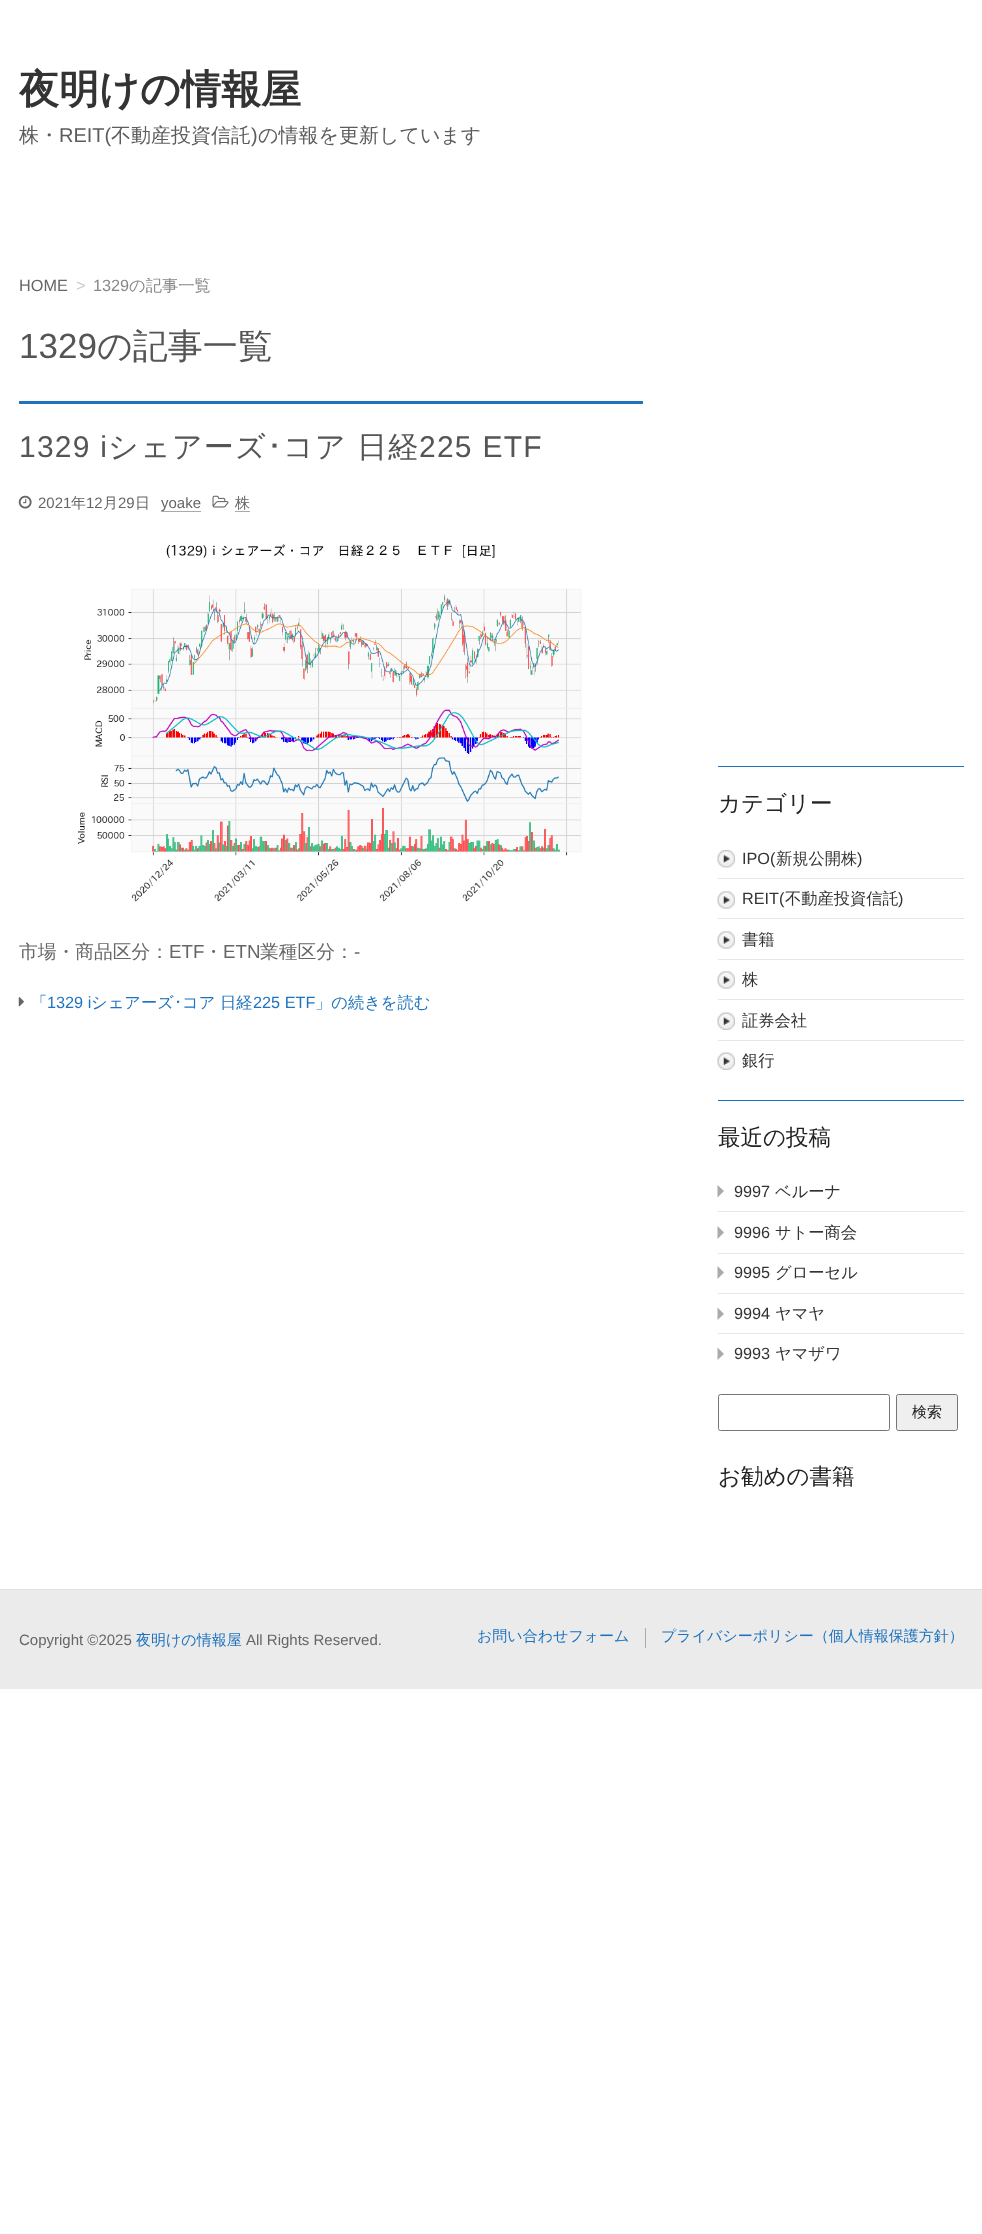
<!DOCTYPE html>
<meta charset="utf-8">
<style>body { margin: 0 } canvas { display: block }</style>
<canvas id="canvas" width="982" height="2234"></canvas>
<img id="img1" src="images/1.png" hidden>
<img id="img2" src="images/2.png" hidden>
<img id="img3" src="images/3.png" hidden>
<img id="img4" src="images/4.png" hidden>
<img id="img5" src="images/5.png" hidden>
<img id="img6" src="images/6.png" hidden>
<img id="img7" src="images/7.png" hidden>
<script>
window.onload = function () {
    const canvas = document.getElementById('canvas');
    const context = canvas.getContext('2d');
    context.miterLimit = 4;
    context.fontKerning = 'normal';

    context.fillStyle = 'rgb(255, 255, 255)';
    context.fillRect(0, 0, 982, 2234);
    context.fillStyle = 'rgb(30, 115, 190)';
    context.fillRect(19, 401, 624, 3);
    context.drawImage(document.getElementById('img1'), 18, 495, 14, 14);
    context.fillStyle = 'rgb(170, 170, 170)';
    context.fillRect(161, 511, 40, 1);
    context.drawImage(document.getElementById('img2'), 212, 495, 17, 13);
    context.fillRect(235, 511, 15, 1);
    context.drawImage(document.getElementById('img3'), 78, 544, 504, 358);
    context.drawImage(document.getElementById('img4'), 18, 997, 6, 10);
    context.fillStyle = 'rgb(30, 115, 190)';
    context.fillRect(718, 766, 246, 1);
    context.drawImage(document.getElementById('img5'), 717, 850, 18, 18);
    context.fillStyle = 'rgb(230, 230, 230)';
    context.fillRect(718, 878, 246, 1);
    context.drawImage(document.getElementById('img6'), 717, 891, 18, 18);
    context.fillRect(718, 918, 246, 1);
    context.drawImage(document.getElementById('img6'), 717, 931, 18, 18);
    context.fillRect(718, 959, 246, 1);
    context.drawImage(document.getElementById('img6'), 717, 971, 18, 18);
    context.fillRect(718, 999, 246, 1);
    context.drawImage(document.getElementById('img7'), 717, 1012, 18, 18);
    context.fillRect(718, 1040, 246, 1);
    context.drawImage(document.getElementById('img7'), 717, 1052, 18, 18);
    context.fillStyle = 'rgb(30, 115, 190)';
    context.fillRect(718, 1100, 246, 1);
    context.fillStyle = 'rgb(230, 230, 230)';
    context.fillRect(718, 1211, 246, 1);
    context.fillStyle = 'rgb(170, 170, 170)';
    context.beginPath();
    context.moveTo(717.5, 1197.5);
    context.lineTo(717.5, 1185);
    context.lineTo(724, 1191);
    context.closePath();
    context.fill();
    context.fillStyle = 'rgb(230, 230, 230)';
    context.fillRect(718, 1253, 246, 1);
    context.fillStyle = 'rgb(170, 170, 170)';
    context.beginPath();
    context.moveTo(717.5, 1239);
    context.lineTo(717.5, 1226);
    context.lineTo(724, 1232.5);
    context.closePath();
    context.fill();
    context.fillStyle = 'rgb(230, 230, 230)';
    context.fillRect(718, 1293, 246, 1);
    context.fillStyle = 'rgb(170, 170, 170)';
    context.beginPath();
    context.moveTo(717.5, 1279);
    context.lineTo(717.5, 1266);
    context.lineTo(724, 1272.5);
    context.closePath();
    context.fill();
    context.fillStyle = 'rgb(230, 230, 230)';
    context.fillRect(718, 1333, 246, 1);
    context.fillStyle = 'rgb(170, 170, 170)';
    context.beginPath();
    context.moveTo(717.5, 1320);
    context.lineTo(717.5, 1307.5);
    context.lineTo(724, 1314);
    context.closePath();
    context.fill();
    context.beginPath();
    context.moveTo(717.5, 1360);
    context.lineTo(717.5, 1347.5);
    context.lineTo(724, 1354);
    context.closePath();
    context.fill();
    context.beginPath();
    context.roundRect(718.5, 1394.5, 171, 36, 2);
    context.strokeStyle = 'rgb(118, 118, 118)';
    context.stroke();
    context.fillStyle = 'rgb(239, 239, 239)';
    context.beginPath();
    context.roundRect(896.5, 1394.5, 61, 36, 2);
    context.fill();
    context.stroke();
    context.fillStyle = 'rgb(235, 235, 235)';
    context.fillRect(0, 1590, 982, 99);
    context.fillStyle = 'rgb(223, 223, 223)';
    context.fillRect(0, 1589, 982, 1);
    context.fillStyle = 'rgb(170, 170, 170)';
    context.fillRect(645, 1628, 1, 20);
    context.font = 'bold 40px WenQuanYi Zen Hei';
    context.fillStyle = 'rgb(51, 51, 51)';
    context.fillText('夜明けの情報屋', 19, 103);
    context.font = '500 20px WenQuanYi Zen Hei';
    context.fillStyle = 'rgb(92, 92, 92)';
    context.fillText('株・', 19, 142);
    context.font = '20px Liberation Sans';
    context.fillText('REIT(', 59, 142);
    context.font = '500 20px WenQuanYi Zen Hei';
    context.fillText('不動産投資信託', 111, 142);
    context.font = '20px Liberation Sans';
    context.fillText(')', 251, 142);
    context.font = '500 20px WenQuanYi Zen Hei';
    context.fillText('の情報を更新しています', 258, 142);
    context.font = '16.25px Liberation Sans';
    context.fillStyle = 'rgb(102, 102, 102)';
    context.fillText('HOME', 19, 291);
    context.fillStyle = 'rgb(204, 204, 204)';
    context.fillText('>', 76, 291);
    context.fillStyle = 'rgb(136, 136, 136)';
    context.fillText('1329', 93, 291);
    context.save();
    context.beginPath();
    context.rect(94, 278, 117, 16);
    context.clip();
    context.font = '500 16.25px WenQuanYi Zen Hei';
    context.fillText('の記事一覧', 129, 291);
    context.restore();
    context.font = '35px Liberation Sans';
    context.fillStyle = 'rgb(85, 85, 85)';
    context.fillText('1329', 19, 358);
    context.font = '500 35px WenQuanYi Zen Hei';
    context.fillText('の記事一覧', 97, 358);
    context.letterSpacing = '1.25px';
    context.font = '30px Liberation Sans';
    context.fillText('1329 i', 19, 457);
    context.font = '500 30px WenQuanYi Zen Hei';
    context.fillText('シェアーズ', 108, 457);
    context.font = '30px IPAPGothic';
    context.fillText('･', 267, 457);
    context.font = '500 30px WenQuanYi Zen Hei';
    context.fillText('コア', 283, 457);
    context.fillText('日経', 357, 457);
    context.font = '30px Liberation Sans';
    context.fillText('225 ETF', 419, 457);
    context.letterSpacing = '0px';
    context.font = '15px Liberation Sans';
    context.fillStyle = 'rgb(102, 102, 102)';
    context.fillText('2021', 38, 508);
    context.font = '500 15px WenQuanYi Zen Hei';
    context.fillText('年', 71, 508);
    context.font = '15px Liberation Sans';
    context.fillText('12', 86, 508);
    context.font = '500 15px WenQuanYi Zen Hei';
    context.fillText('月', 103, 508);
    context.font = '15px Liberation Sans';
    context.fillText('29', 118, 508);
    context.font = '500 15px WenQuanYi Zen Hei';
    context.fillText('日', 135, 508);
    context.font = '15px Liberation Sans';
    context.fillText('yoake', 161, 508);
    context.font = '500 15px WenQuanYi Zen Hei';
    context.fillText('株', 235, 508);
    context.font = '500 18.75px WenQuanYi Zen Hei';
    context.fillText('市場・商品区分：', 19, 958);
    context.font = '18.75px Liberation Sans';
    context.fillText('ETF', 169, 958);
    context.font = '500 18.75px WenQuanYi Zen Hei';
    context.fillText('・', 204, 958);
    context.font = '18.75px Liberation Sans';
    context.fillText('ETN', 223, 958);
    context.font = '500 18.75px WenQuanYi Zen Hei';
    context.fillText('業種区分：', 260, 958);
    context.font = '18.75px Liberation Sans';
    context.fillText('-', 354, 958);
    context.font = '500 16.25px WenQuanYi Zen Hei';
    context.fillStyle = 'rgb(30, 115, 190)';
    context.fillText('「', 31, 1008);
    context.font = '16.25px Liberation Sans';
    context.fillText('1329 i', 47, 1008);
    context.font = '500 16.25px WenQuanYi Zen Hei';
    context.fillText('シェアーズ', 91, 1008);
    context.font = '16.25px IPAPGothic';
    context.fillText('･', 174, 1008);
    context.font = '500 16.25px WenQuanYi Zen Hei';
    context.fillText('コア', 182, 1008);
    context.fillText('日経', 220, 1008);
    context.font = '16.25px Liberation Sans';
    context.fillText('225 ETF', 253, 1008);
    context.font = '500 16.25px WenQuanYi Zen Hei';
    context.fillText('」の続きを読む', 315, 1008);
    context.font = '500 22.5px WenQuanYi Zen Hei';
    context.fillStyle = 'rgb(34, 34, 34)';
    context.fillText('カテゴリー', 718, 811);
    context.font = '16.25px Liberation Sans';
    context.fillStyle = 'rgb(51, 51, 51)';
    context.fillText('IPO(', 742, 864);
    context.font = '500 16.25px WenQuanYi Zen Hei';
    context.fillText('新規公開株', 776, 864);
    context.font = '16.25px Liberation Sans';
    context.fillText(')', 857, 864);
    context.fillText('REIT(', 742, 904);
    context.font = '500 16.25px WenQuanYi Zen Hei';
    context.fillText('不動産投資信託', 785, 904);
    context.font = '16.25px Liberation Sans';
    context.fillText(')', 898, 904);
    context.font = '500 16.25px WenQuanYi Zen Hei';
    context.fillText('書籍', 742, 945);
    context.fillText('株', 742, 985);
    context.fillText('証券会社', 742, 1026);
    context.fillText('銀行', 742, 1066);
    context.font = '500 22.5px WenQuanYi Zen Hei';
    context.fillStyle = 'rgb(34, 34, 34)';
    context.fillText('最近の投稿', 718, 1145);
    context.font = '16.25px Liberation Sans';
    context.fillStyle = 'rgb(51, 51, 51)';
    context.fillText('9997', 734, 1197);
    context.font = '500 16.25px WenQuanYi Zen Hei';
    context.fillText('ベルーナ', 775, 1197);
    context.font = '16.25px Liberation Sans';
    context.fillText('9996', 734, 1238);
    context.font = '500 16.25px WenQuanYi Zen Hei';
    context.fillText('サトー商会', 775, 1238);
    context.font = '16.25px Liberation Sans';
    context.fillText('9995', 734, 1278);
    context.font = '500 16.25px WenQuanYi Zen Hei';
    context.fillText('グローセル', 775, 1278);
    context.font = '16.25px Liberation Sans';
    context.fillText('9994', 734, 1319);
    context.font = '500 16.25px WenQuanYi Zen Hei';
    context.fillText('ヤマヤ', 775, 1319);
    context.font = '16.25px Liberation Sans';
    context.fillText('9993', 734, 1359);
    context.font = '500 16.25px WenQuanYi Zen Hei';
    context.fillText('ヤマザワ', 775, 1359);
    context.font = '500 15px WenQuanYi Zen Hei';
    context.fillStyle = 'rgb(34, 34, 34)';
    context.fillText('検索', 912, 1417);
    context.font = '500 22.5px WenQuanYi Zen Hei';
    context.fillText('お勧めの書籍', 718, 1484);
    context.font = '15px Liberation Sans';
    context.fillStyle = 'rgb(102, 102, 102)';
    context.fillText('Copyright ©2025', 19, 1645);
    context.font = '500 15px WenQuanYi Zen Hei';
    context.fillStyle = 'rgb(30, 115, 190)';
    context.fillText('夜明けの情報屋', 136, 1645);
    context.font = '15px Liberation Sans';
    context.fillStyle = 'rgb(102, 102, 102)';
    context.fillText('All Rights Reserved.', 246, 1645);
    context.font = '500 15px WenQuanYi Zen Hei';
    context.fillStyle = 'rgb(30, 115, 190)';
    context.fillText('お問い合わせフォーム', 477, 1641);
    context.fillText('プライバシーポリシー（個人情報保護方針）', 661, 1641);
};
</script>
